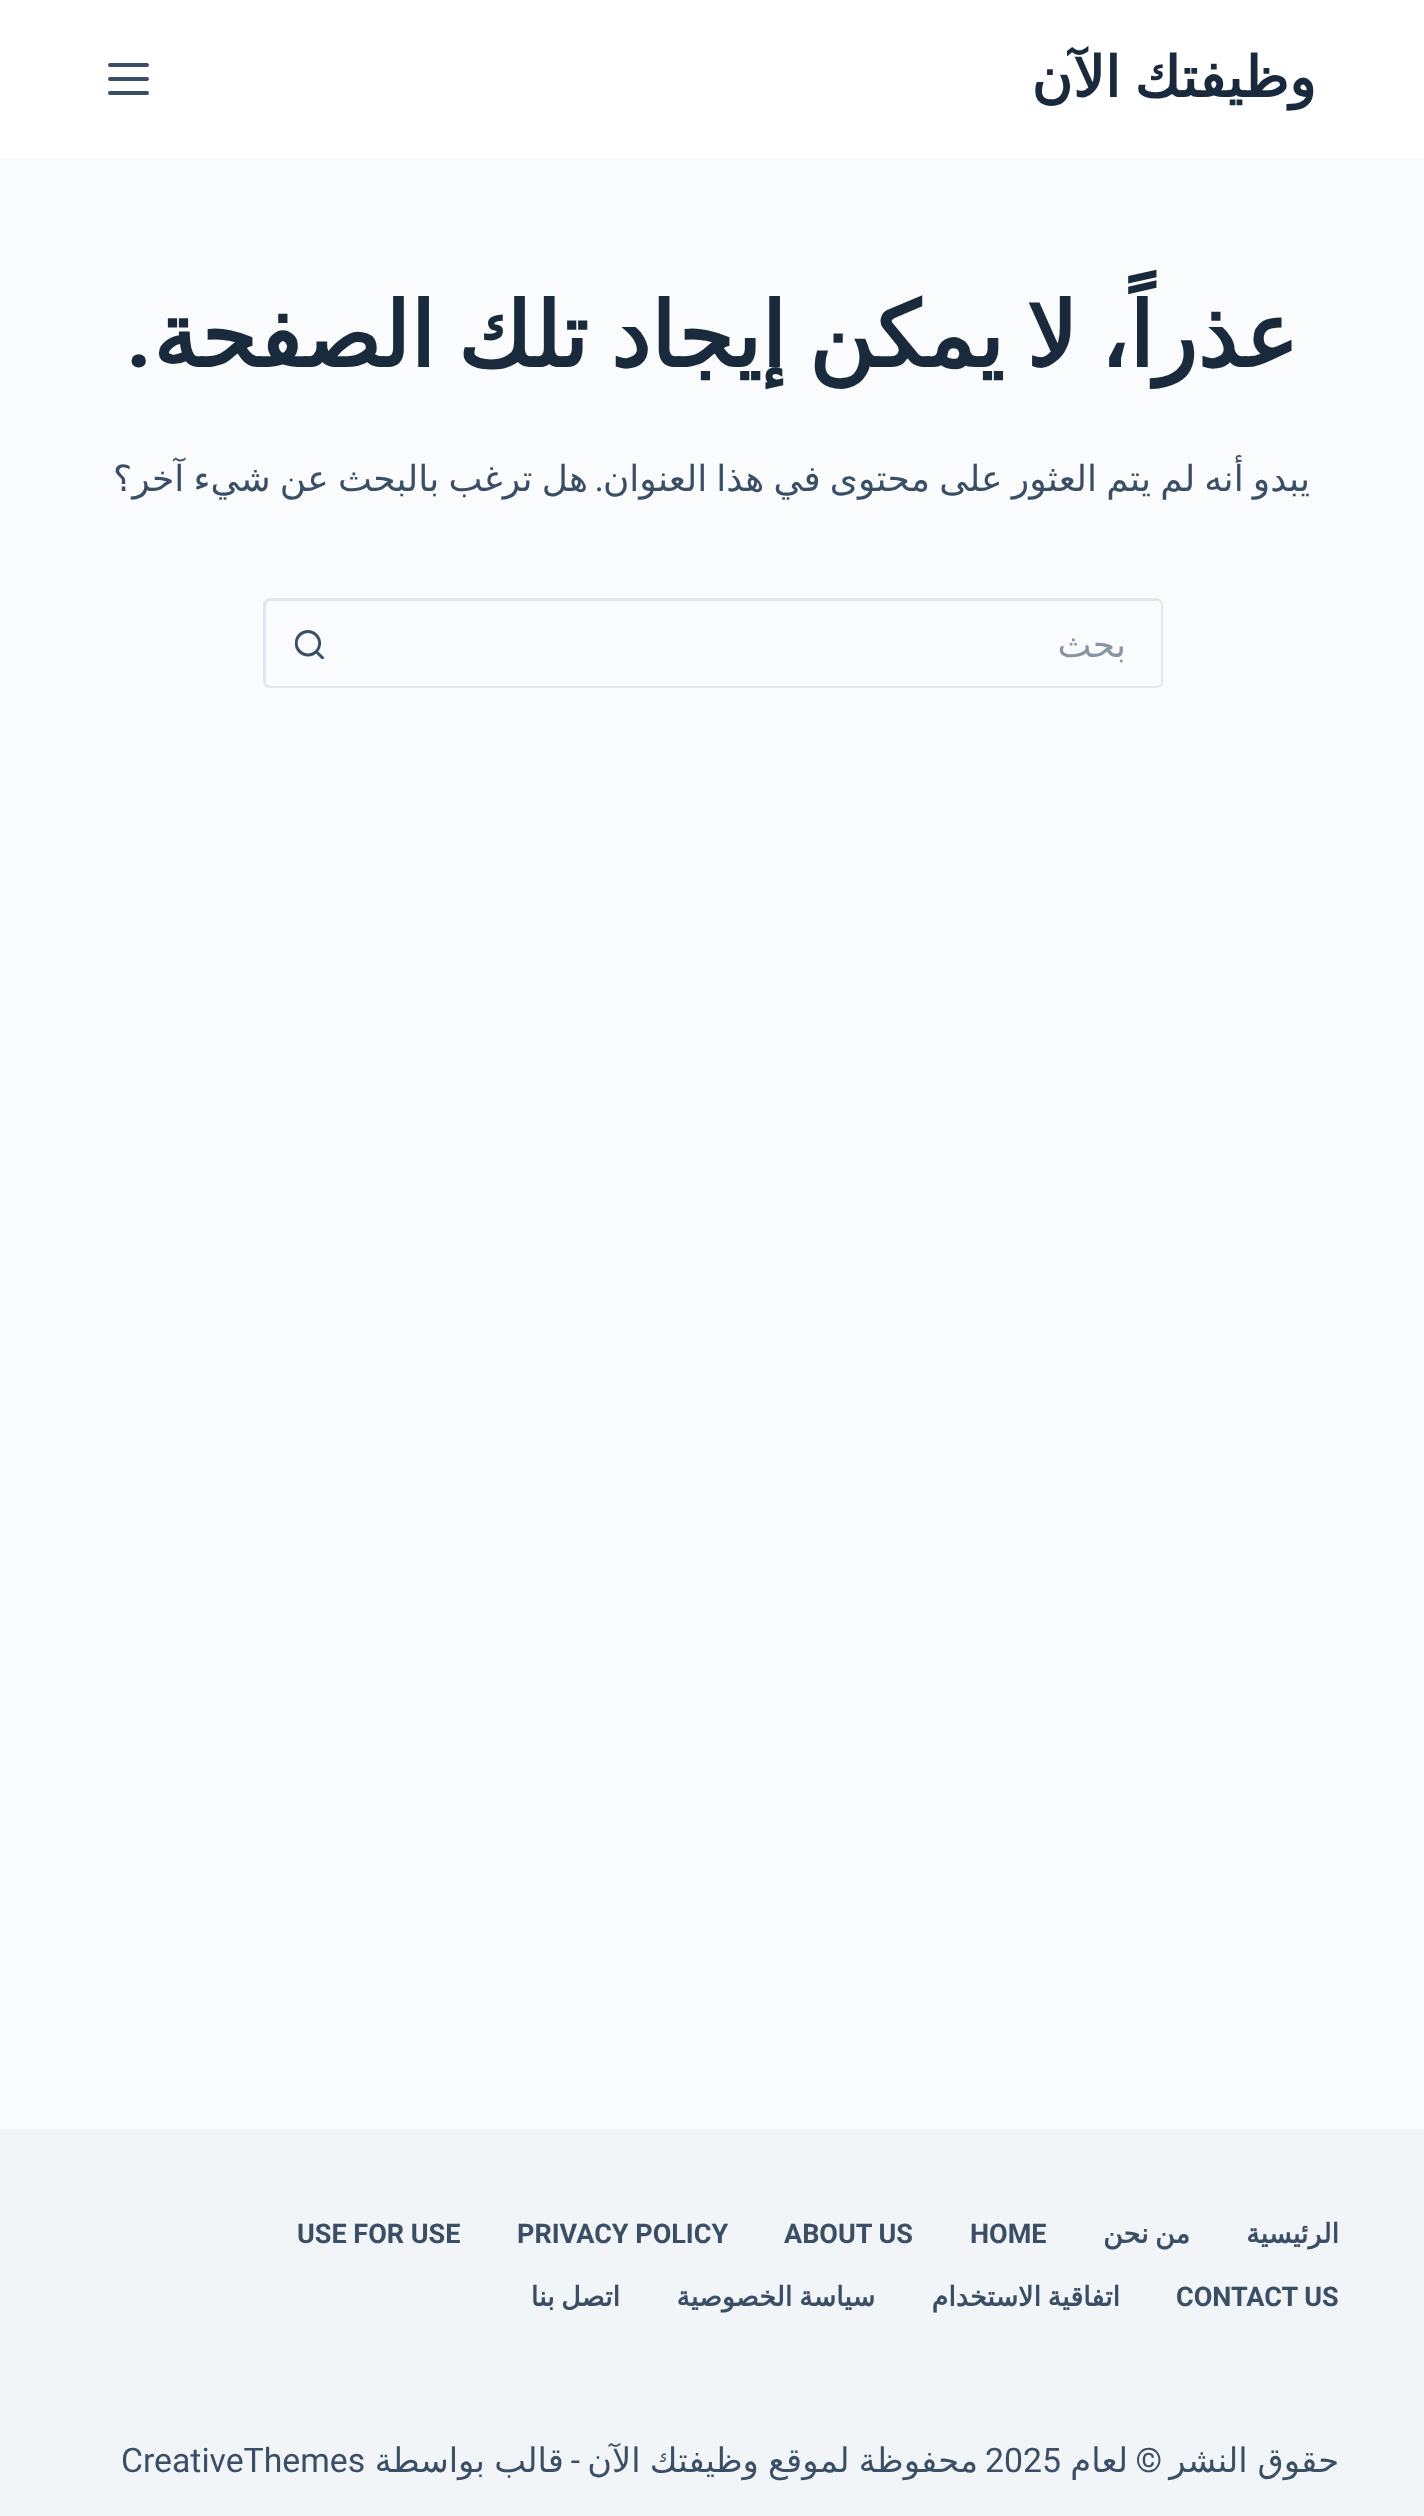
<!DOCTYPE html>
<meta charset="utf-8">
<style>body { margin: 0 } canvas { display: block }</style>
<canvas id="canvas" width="1424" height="2516"></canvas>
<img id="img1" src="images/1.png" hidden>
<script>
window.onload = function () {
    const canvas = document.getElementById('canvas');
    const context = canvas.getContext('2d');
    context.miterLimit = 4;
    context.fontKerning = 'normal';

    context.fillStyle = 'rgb(250, 251, 252)';
    context.fillRect(0, 0, 1424, 2516);
    context.fillStyle = 'rgb(255, 255, 255)';
    context.fillRect(0, 0, 1424, 158);
    context.fillStyle = 'rgb(58, 79, 102)';
    context.beginPath();
    context.roundRect(108, 63, 41, 4, 2);
    context.fill();
    context.beginPath();
    context.roundRect(108, 77, 41, 4, 2);
    context.fill();
    context.beginPath();
    context.roundRect(108, 91, 41, 4, 2);
    context.fill();
    context.fillStyle = 'rgb(225, 232, 237)';
    context.beginPath();
    context.moveTo(353, 598);
    context.lineTo(1156, 598);
    context.bezierCurveTo(1160, 598, 1163, 602, 1163, 605);
    context.lineTo(1163, 682);
    context.bezierCurveTo(1163, 685, 1160, 688, 1156, 688);
    context.lineTo(353, 688);
    context.closePath();
    context.moveTo(353, 601);
    context.lineTo(1156, 601);
    context.bezierCurveTo(1159, 601, 1161, 603, 1161, 605);
    context.lineTo(1161, 682);
    context.bezierCurveTo(1161, 684, 1159, 686, 1156, 686);
    context.lineTo(353, 686);
    context.closePath();
    context.fill('evenodd');
    context.beginPath();
    context.moveTo(270, 598);
    context.lineTo(353, 598);
    context.lineTo(353, 688);
    context.lineTo(270, 688);
    context.bezierCurveTo(266, 688, 263, 685, 263, 682);
    context.lineTo(263, 605);
    context.bezierCurveTo(263, 602, 266, 598, 270, 598);
    context.closePath();
    context.moveTo(270, 601);
    context.lineTo(353, 601);
    context.lineTo(353, 686);
    context.lineTo(270, 686);
    context.bezierCurveTo(268, 686, 266, 684, 266, 682);
    context.lineTo(266, 605);
    context.bezierCurveTo(266, 603, 268, 601, 270, 601);
    context.closePath();
    context.fill('evenodd');
    context.drawImage(document.getElementById('img1'), 295, 630, 29, 29);
    context.fillStyle = 'rgb(242, 245, 247)';
    context.fillRect(0, 2129, 1424, 387);
    context.wordSpacing = '-4px';
    context.direction = 'rtl';
    context.font = 'bold 56.25px DejaVu Sans';
    context.fillStyle = 'rgb(25, 42, 61)';
    context.fillText('وظيفتك الآن', 1316, 97);
    context.wordSpacing = '-6.25px';
    context.font = 'bold 90px DejaVu Sans';
    context.fillText('عذراً، لا يمكن إيجاد تلك الصفحة', 1298, 367);
    context.wordSpacing = '0px';
    context.font = 'bold 90px Roboto';
    context.fillText('.', 152, 367);
    context.wordSpacing = '-2.25px';
    context.font = '36px DejaVu Sans';
    context.fillStyle = 'rgb(58, 79, 102)';
    context.fillText('يبدو أنه لم يتم العثور على محتوى في هذا العنوان', 1310, 491);
    context.wordSpacing = '0px';
    context.font = '36px Roboto';
    context.fillText('.', 604, 491);
    context.wordSpacing = '-2.25px';
    context.font = '36px DejaVu Sans';
    context.fillText('هل ترغب بالبحث عن شيء آخر؟', 588, 491);
    context.wordSpacing = '0px';
    context.fillStyle = 'rgb(135, 148, 162)';
    context.fillText('بحث', 1126, 657);
    context.font = 'bold 27px DejaVu Sans';
    context.fillStyle = 'rgb(58, 79, 102)';
    context.fillText('الرئيسية', 1339, 2243);
    context.wordSpacing = '-2px';
    context.fillText('من نحن', 1190, 2243);
    context.wordSpacing = '0px';
    context.direction = 'ltr';
    context.font = 'bold 27px Roboto';
    context.fillText('HOME', 970, 2243);
    context.fillText('ABOUT US', 784, 2243);
    context.fillText('PRIVACY POLICY', 517, 2243);
    context.fillText('USE FOR USE', 297, 2243);
    context.fillText('CONTACT US', 1176, 2306);
    context.wordSpacing = '-2px';
    context.direction = 'rtl';
    context.font = 'bold 27px DejaVu Sans';
    context.fillText('اتفاقية الاستخدام', 1120, 2306);
    context.fillText('سياسة الخصوصية', 875, 2306);
    context.fillText('اتصل بنا', 620, 2306);
    context.wordSpacing = '-1px';
    context.font = '33.75px DejaVu Sans';
    context.fillText('حقوق النشر', 1339, 2472);
    context.wordSpacing = '0px';
    context.font = '33.75px Roboto';
    context.fillText('©', 1162, 2472);
    context.font = '33.75px DejaVu Sans';
    context.fillText('لعام', 1128, 2472);
    context.direction = 'ltr';
    context.font = '33.75px Roboto';
    context.fillText('2025', 985, 2472);
    context.wordSpacing = '-1.5px';
    context.direction = 'rtl';
    context.font = '33.75px DejaVu Sans';
    context.fillText('محفوظة لموقع وظيفتك الآن', 978, 2472);
    context.wordSpacing = '0px';
    context.font = '33.75px Roboto';
    context.fillText('-', 580, 2472);
    context.wordSpacing = '-1.5px';
    context.font = '33.75px DejaVu Sans';
    context.fillText('قالب بواسطة', 564, 2472);
    context.wordSpacing = '0px';
    context.direction = 'ltr';
    context.font = '33.75px Roboto';
    context.fillText('CreativeThemes', 121, 2472);
};
</script>
